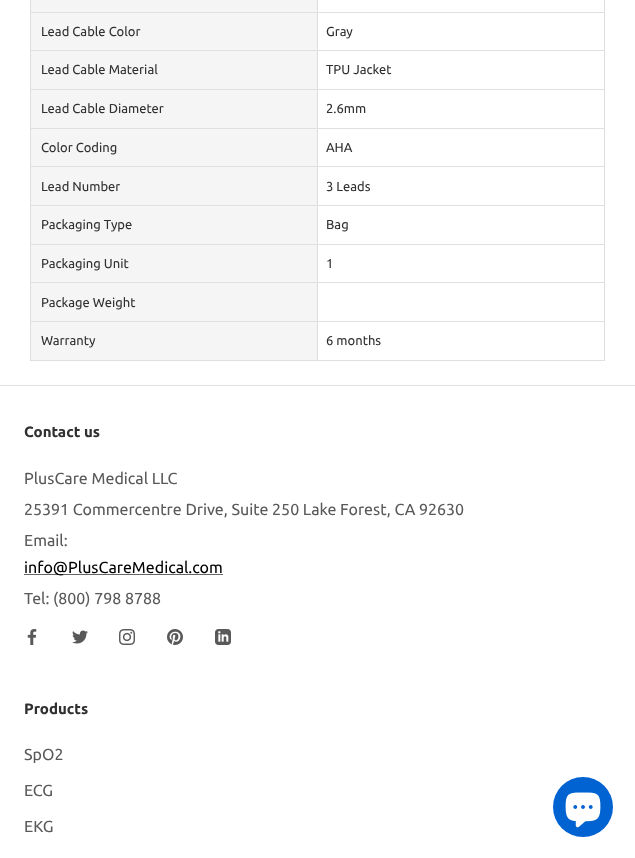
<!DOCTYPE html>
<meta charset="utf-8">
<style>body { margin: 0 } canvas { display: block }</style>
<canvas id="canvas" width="635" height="858"></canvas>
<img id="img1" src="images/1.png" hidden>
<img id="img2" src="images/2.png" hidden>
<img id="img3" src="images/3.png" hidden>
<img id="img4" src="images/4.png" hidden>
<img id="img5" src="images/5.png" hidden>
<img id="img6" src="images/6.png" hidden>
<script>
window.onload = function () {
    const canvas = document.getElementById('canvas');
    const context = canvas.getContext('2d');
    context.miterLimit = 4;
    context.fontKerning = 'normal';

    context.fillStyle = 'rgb(255, 255, 255)';
    context.fillRect(0, 0, 635, 858);
    context.fillStyle = 'rgb(245, 245, 245)';
    context.fillRect(31, 0, 286, 12);
    context.fillStyle = 'rgb(221, 221, 221)';
    context.fillRect(604, 0, 1, 361);
    context.fillStyle = 'rgb(224, 224, 224)';
    context.fillRect(317, 360, 288, 1);
    context.fillStyle = 'rgb(221, 221, 221)';
    context.fillRect(317, 321, 1, 40);
    context.fillStyle = 'rgb(224, 224, 224)';
    context.fillRect(317, 321, 288, 1);
    context.fillStyle = 'rgb(221, 221, 221)';
    context.fillRect(317, 282, 1, 40);
    context.fillStyle = 'rgb(224, 224, 224)';
    context.fillRect(317, 282, 288, 1);
    context.fillStyle = 'rgb(221, 221, 221)';
    context.fillRect(317, 244, 1, 39);
    context.fillStyle = 'rgb(224, 224, 224)';
    context.fillRect(317, 244, 288, 1);
    context.fillStyle = 'rgb(221, 221, 221)';
    context.fillRect(317, 205, 1, 40);
    context.fillStyle = 'rgb(224, 224, 224)';
    context.fillRect(317, 205, 288, 1);
    context.fillStyle = 'rgb(221, 221, 221)';
    context.fillRect(317, 166, 1, 40);
    context.fillStyle = 'rgb(224, 224, 224)';
    context.fillRect(317, 166, 288, 1);
    context.fillStyle = 'rgb(221, 221, 221)';
    context.fillRect(317, 128, 1, 39);
    context.fillStyle = 'rgb(224, 224, 224)';
    context.fillRect(317, 128, 288, 1);
    context.fillStyle = 'rgb(221, 221, 221)';
    context.fillRect(317, 89, 1, 40);
    context.fillStyle = 'rgb(224, 224, 224)';
    context.fillRect(317, 89, 288, 1);
    context.fillStyle = 'rgb(221, 221, 221)';
    context.fillRect(317, 50, 1, 40);
    context.fillStyle = 'rgb(224, 224, 224)';
    context.fillRect(317, 50, 288, 1);
    context.fillStyle = 'rgb(221, 221, 221)';
    context.fillRect(317, 12, 1, 39);
    context.fillStyle = 'rgb(224, 224, 224)';
    context.fillRect(317, 12, 288, 1);
    context.fillStyle = 'rgb(221, 221, 221)';
    context.fillRect(317, 0, 1, 13);
    context.fillRect(30, 0, 1, 361);
    context.fillStyle = 'rgb(224, 224, 224)';
    context.fillRect(30, 12, 288, 1);
    context.fillStyle = 'rgb(245, 245, 245)';
    context.fillRect(31, 13, 286, 37);
    context.fillStyle = 'rgb(224, 224, 224)';
    context.fillRect(30, 50, 288, 1);
    context.fillStyle = 'rgb(245, 245, 245)';
    context.fillRect(31, 51, 286, 38);
    context.fillStyle = 'rgb(224, 224, 224)';
    context.fillRect(30, 89, 288, 1);
    context.fillStyle = 'rgb(245, 245, 245)';
    context.fillRect(31, 90, 286, 38);
    context.fillStyle = 'rgb(224, 224, 224)';
    context.fillRect(30, 128, 288, 1);
    context.fillStyle = 'rgb(245, 245, 245)';
    context.fillRect(31, 129, 286, 37);
    context.fillStyle = 'rgb(224, 224, 224)';
    context.fillRect(30, 166, 288, 1);
    context.fillStyle = 'rgb(245, 245, 245)';
    context.fillRect(31, 167, 286, 38);
    context.fillStyle = 'rgb(224, 224, 224)';
    context.fillRect(30, 205, 288, 1);
    context.fillStyle = 'rgb(245, 245, 245)';
    context.fillRect(31, 206, 286, 38);
    context.fillStyle = 'rgb(224, 224, 224)';
    context.fillRect(30, 244, 288, 1);
    context.fillStyle = 'rgb(245, 245, 245)';
    context.fillRect(31, 245, 286, 37);
    context.fillStyle = 'rgb(224, 224, 224)';
    context.fillRect(30, 282, 288, 1);
    context.fillStyle = 'rgb(245, 245, 245)';
    context.fillRect(31, 283, 286, 38);
    context.fillStyle = 'rgb(224, 224, 224)';
    context.fillRect(30, 321, 288, 1);
    context.fillStyle = 'rgb(245, 245, 245)';
    context.fillRect(31, 322, 286, 38);
    context.fillStyle = 'rgb(224, 224, 224)';
    context.fillRect(30, 360, 288, 1);
    context.fillRect(0, 385, 635, 1);
    context.fillStyle = 'rgb(102, 102, 102)';
    context.fillRect(24, 574, 199, 1);
    context.drawImage(document.getElementById('img1'), 27, 629, 10, 16);
    context.drawImage(document.getElementById('img2'), 72, 630, 16, 14);
    context.drawImage(document.getElementById('img3'), 119, 629, 16, 16);
    context.drawImage(document.getElementById('img4'), 167, 629, 16, 16);
    context.drawImage(document.getElementById('img5'), 215, 629, 16, 16);
    context.fillStyle = 'rgb(1, 99, 210)';
    context.beginPath();
    context.arc(583, 807, 30, 0, 2 * Math.PI);
    context.fill();
    context.drawImage(document.getElementById('img6'), 565, 792, 36, 36);
    context.font = '13px Ubuntu';
    context.fillStyle = 'rgb(48, 48, 48)';
    context.fillText('Lead Cable Color', 41, 36);
    context.fillText('Gray', 326, 36);
    context.fillText('Lead Cable Material', 41, 74);
    context.fillText('TPU Jacket', 326, 74);
    context.fillText('Lead Cable Diameter', 41, 113);
    context.fillText('2.6mm', 326, 113);
    context.fillText('Color Coding', 41, 152);
    context.fillText('AHA', 326, 152);
    context.fillText('Lead Number', 41, 191);
    context.fillText('3 Leads', 326, 191);
    context.fillText('Packaging Type', 41, 229);
    context.fillText('Bag', 326, 229);
    context.fillText('Packaging Unit', 41, 268);
    context.fillText('1', 326, 268);
    context.fillText('Package Weight', 41, 307);
    context.fillText('Warranty', 41, 345);
    context.fillText('6 months', 326, 345);
    context.font = 'bold 15px Ubuntu';
    context.fillText('Contact us', 24, 437);
    context.font = '16px Ubuntu';
    context.fillStyle = 'rgb(89, 89, 89)';
    context.fillText('PlusCare Medical LLC', 24, 484);
    context.fillText('25391 Commercentre Drive, Suite 250 Lake Forest, CA 92630', 24, 515);
    context.fillText('Email:', 24, 546);
    context.fillStyle = 'rgb(0, 0, 0)';
    context.fillText('info@PlusCareMedical.com', 24, 573);
    context.fillStyle = 'rgb(89, 89, 89)';
    context.fillText('Tel: (800) 798 8788', 24, 604);
    context.font = 'bold 15px Ubuntu';
    context.fillStyle = 'rgb(48, 48, 48)';
    context.fillText('Products', 24, 714);
    context.font = '16px Ubuntu';
    context.fillStyle = 'rgb(89, 89, 89)';
    context.fillText('SpO2', 24, 760);
    context.fillText('ECG', 24, 796);
    context.fillText('EKG', 24, 832);
};
</script>
